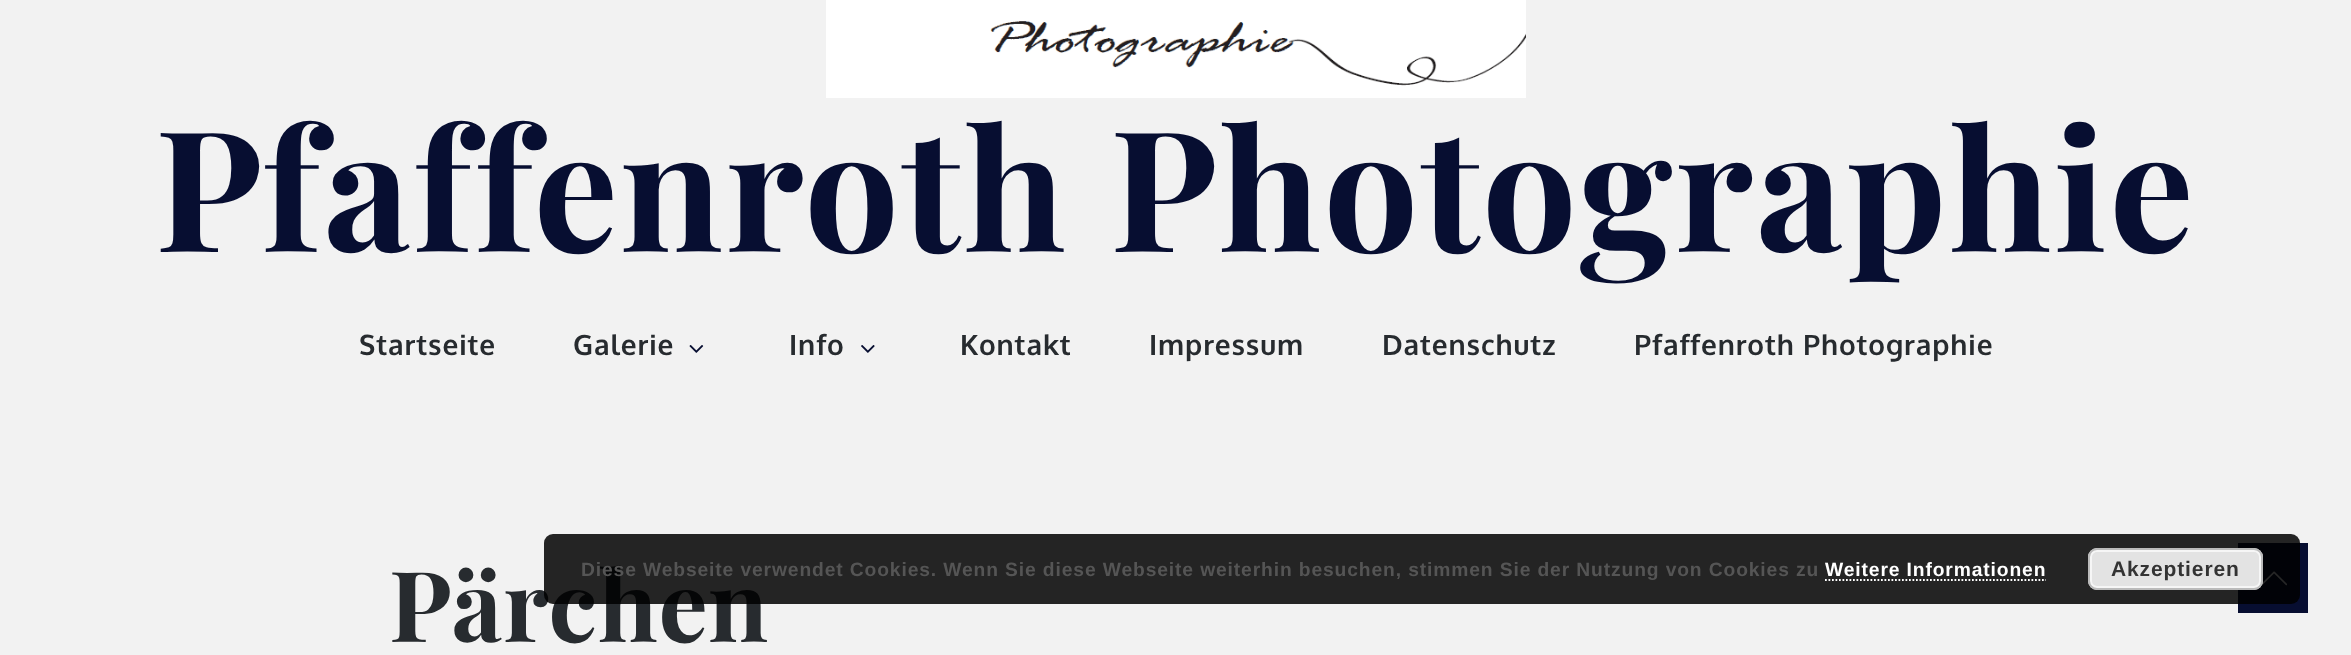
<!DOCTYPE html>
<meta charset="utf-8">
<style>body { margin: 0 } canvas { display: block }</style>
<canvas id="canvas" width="2351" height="655"></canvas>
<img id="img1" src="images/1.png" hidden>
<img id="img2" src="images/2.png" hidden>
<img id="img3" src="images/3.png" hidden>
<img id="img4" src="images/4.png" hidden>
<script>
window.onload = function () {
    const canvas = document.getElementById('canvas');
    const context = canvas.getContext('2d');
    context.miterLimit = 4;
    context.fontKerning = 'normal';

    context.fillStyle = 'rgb(242, 242, 242)';
    context.fillRect(0, 0, 2351, 655);
    context.drawImage(document.getElementById('img1'), 826, 0, 700, 98);
    context.drawImage(document.getElementById('img2'), 689, 345, 15, 8);
    context.drawImage(document.getElementById('img3'), 861, 345, 14, 8);
    context.fillStyle = 'rgb(7, 14, 49)';
    context.fillRect(2238, 543, 70, 70);
    context.drawImage(document.getElementById('img4'), 2261, 571, 26, 15);
    context.letterSpacing = '2.6px';
    context.font = 'bold 168px Playfair Display';
    context.fillText('Pfaffenroth Photographie', 155, 252);
    context.letterSpacing = '0.88px';
    context.font = 'bold 28px Oxygen';
    context.fillStyle = 'rgb(39, 43, 47)';
    context.fillText('Startseite', 359, 355);
    context.fillText('Galerie', 573, 355);
    context.fillText('Info', 789, 355);
    context.fillText('Kontakt', 960, 355);
    context.fillText('Impressum', 1149, 355);
    context.fillText('Datenschutz', 1382, 355);
    context.fillText('Pfaffenroth Photographie', 1634, 355);
    context.font = 'bold 98px Playfair Display';
    context.fillText('Pärchen', 389, 642);
    context.fillStyle = 'rgba(0, 0, 0, 0.85)';
    context.beginPath();
    context.roundRect(544, 534, 1756, 70, 9);
    context.fill();
    context.font = 'bold 19.25px Liberation Sans';
    context.fillStyle = 'rgb(85, 85, 85)';
    context.fillText('Diese Webseite verwendet Cookies. Wenn Sie diese Webseite weiterhin besuchen, stimmen Sie der Nutzung von Cookies zu', 581, 576);
    context.fillStyle = 'rgb(255, 255, 255)';
    context.fillText('Weitere Informationen', 1825, 576);
    context.beginPath();
    context.moveTo(1825, 580);
    context.lineTo(2046, 580);
    context.strokeStyle = 'rgb(255, 255, 255)';
    context.lineWidth = 1.8;
    context.setLineDash([1.75, 1.75]);
    context.stroke();
    context.fillStyle = 'rgb(227, 227, 227)';
    context.beginPath();
    context.roundRect(2088, 548, 175, 42, 9);
    context.fill();
    context.beginPath();
    context.roundRect(2091, 551, 169, 36, 6);
    context.strokeStyle = 'rgb(246, 246, 246)';
    context.lineWidth = 2;
    context.setLineDash([]);
    context.stroke();
    context.beginPath();
    context.roundRect(2089, 549, 173, 40, 8);
    context.strokeStyle = 'rgb(187, 187, 187)';
    context.stroke();
    context.font = 'bold 21px Liberation Sans';
    context.fillStyle = 'rgb(51, 51, 51)';
    context.fillText('Akzeptieren', 2111, 576);
};
</script>
